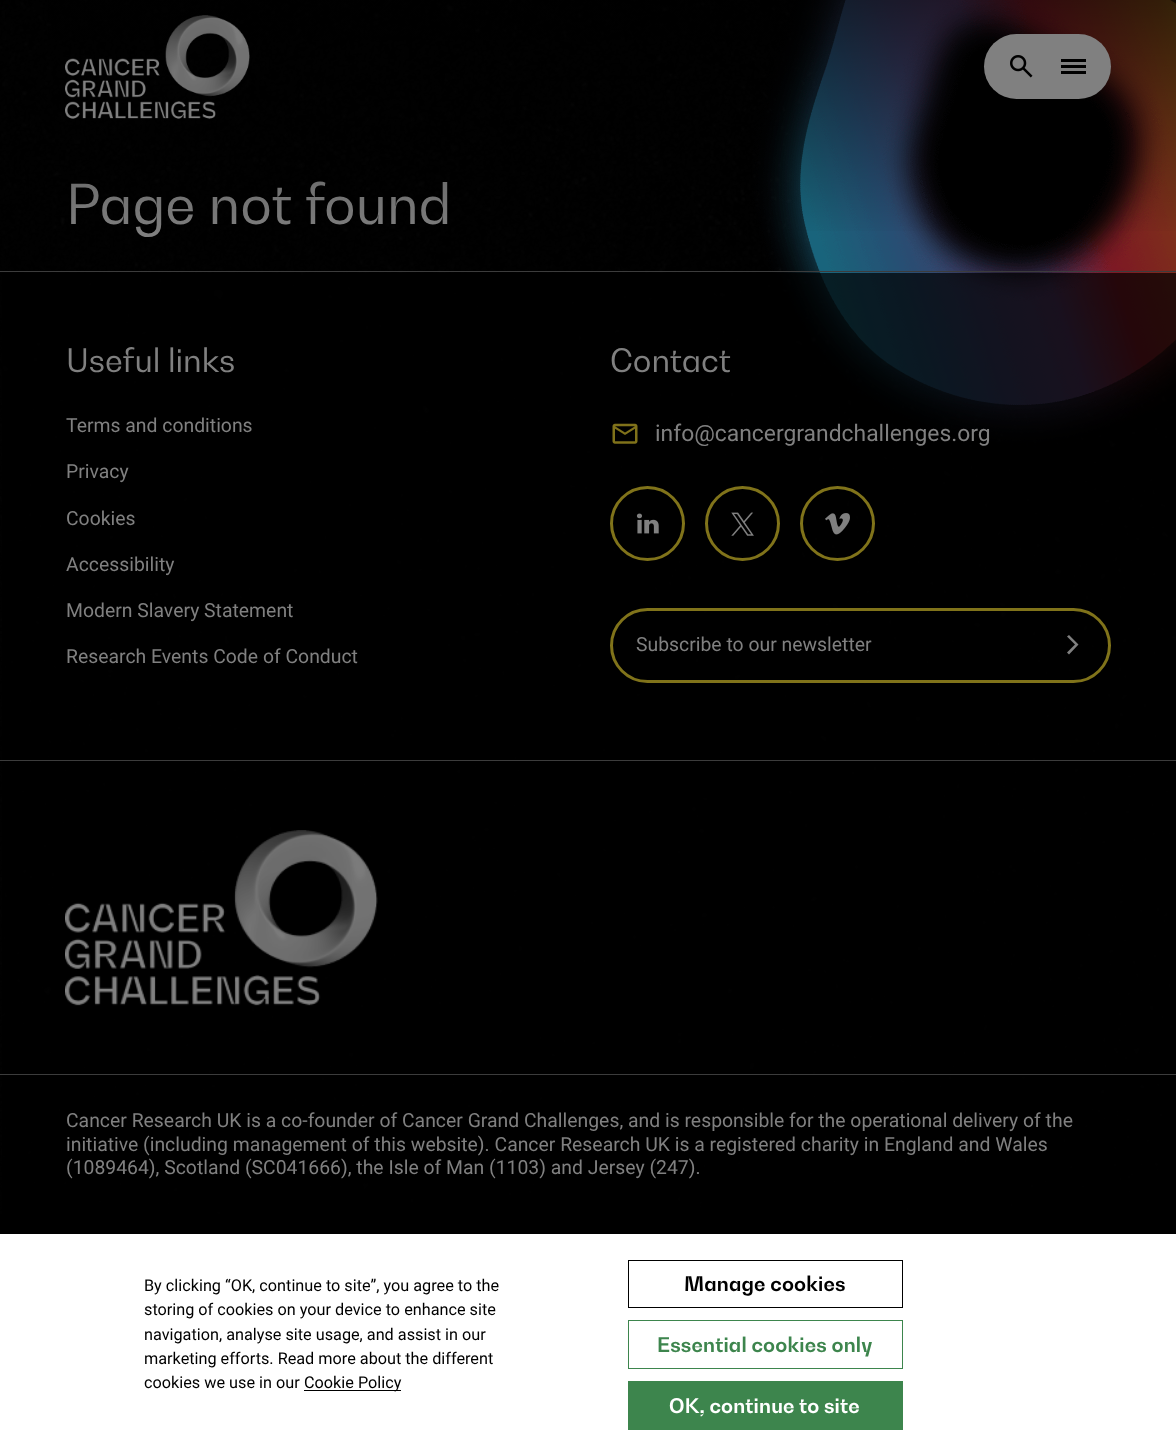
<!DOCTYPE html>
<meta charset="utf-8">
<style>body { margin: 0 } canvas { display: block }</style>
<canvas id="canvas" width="1176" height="1454"></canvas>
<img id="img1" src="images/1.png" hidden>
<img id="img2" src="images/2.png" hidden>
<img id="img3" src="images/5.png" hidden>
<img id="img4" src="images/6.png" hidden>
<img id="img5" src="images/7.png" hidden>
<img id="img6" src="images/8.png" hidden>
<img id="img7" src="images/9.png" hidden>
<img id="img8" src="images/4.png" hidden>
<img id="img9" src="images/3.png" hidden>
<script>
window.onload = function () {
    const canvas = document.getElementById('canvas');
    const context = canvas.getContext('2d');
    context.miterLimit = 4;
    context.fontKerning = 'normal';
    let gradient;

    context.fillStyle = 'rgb(0, 0, 0)';
    context.fillRect(0, 0, 1176, 1454);
    context.drawImage(document.getElementById('img1'), 0, 0, 1176, 1214);
    context.drawImage(document.getElementById('img2'), 752, 0, 424, 454);
    context.fillStyle = 'rgba(0, 0, 0, 0.7)';
    context.fillRect(2, 273, 1174, 941);
    context.fillStyle = 'rgb(60, 60, 60)';
    context.fillRect(0, 271, 1176, 1);
    context.drawImage(document.getElementById('img3'), 612, 423, 26, 21);
    context.beginPath();
    context.arc(647.5, 523.5, 36, 0, 2 * Math.PI);
    context.strokeStyle = 'rgb(128, 115, 26)';
    context.lineWidth = 3;
    context.stroke();
    context.drawImage(document.getElementById('img4'), 636, 513, 23, 21);
    context.beginPath();
    context.arc(742.5, 523.5, 36, 0, 2 * Math.PI);
    context.stroke();
    context.drawImage(document.getElementById('img5'), 731, 512, 23, 24);
    context.beginPath();
    context.arc(837.5, 523.5, 36, 0, 2 * Math.PI);
    context.stroke();
    context.drawImage(document.getElementById('img6'), 825, 513, 25, 22);
    context.beginPath();
    context.roundRect(611.5, 609.5, 498, 72, 36);
    context.stroke();
    context.fillStyle = 'rgb(128, 128, 128)';
    context.beginPath();
    context.moveTo(1069, 654.5);
    context.lineTo(1067, 652.5);
    context.lineTo(1075, 644.5);
    context.lineTo(1067, 636.5);
    context.lineTo(1069, 635);
    context.lineTo(1078.5, 644.5);
    context.closePath();
    context.fill();
    context.fillStyle = 'rgb(60, 60, 60)';
    context.fillRect(0, 760, 1176, 1);
    context.drawImage(document.getElementById('img7'), 65, 830, 313, 176);
    context.fillRect(0, 1074, 1176, 1);
    context.fillStyle = 'rgb(255, 255, 255)';
    context.fillRect(0, 1234, 1176, 220);
    context.fillStyle = 'rgb(0, 0, 0)';
    context.fillRect(304, 1390, 97, 1);
    context.strokeStyle = 'rgb(0, 0, 0)';
    context.lineWidth = 1;
    context.strokeRect(628.5, 1260.5, 274, 47);
    context.strokeStyle = 'rgb(61, 133, 77)';
    context.strokeRect(628.5, 1320.5, 274, 48);
    context.fillStyle = 'rgb(61, 133, 77)';
    context.fillRect(628, 1381, 275, 49);
    context.font = '54.5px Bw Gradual';
    context.fillStyle = 'rgb(128, 128, 128)';
    context.fillText('Page not found', 66, 224);
    gradient = context.createLinearGradient(588, 0, 588, 240);
    gradient.addColorStop(0, 'rgba(0, 0, 0, 0.6)');
    gradient.addColorStop(1, 'rgba(0, 0, 0, 0)');
    context.fillStyle = gradient;
    context.fillRect(48, 0, 1128, 231);
    context.fillStyle = 'rgb(128, 128, 128)';
    context.beginPath();
    context.roundRect(1049, 34, 62, 65, [0, 32.5, 32.5, 0]);
    context.fill();
    context.fillStyle = 'rgb(0, 0, 0)';
    context.fillRect(1061, 71, 25, 3);
    context.fillRect(1061, 59, 25, 3);
    context.fillRect(1061, 65, 25, 3);
    context.fillStyle = 'rgb(128, 128, 128)';
    context.beginPath();
    context.roundRect(984, 34, 65, 65, [32.5, 0, 0, 32.5]);
    context.fill();
    context.drawImage(document.getElementById('img8'), 1010, 55, 23, 23);
    context.drawImage(document.getElementById('img9'), 65, 15, 185, 104);
    context.font = '32px Bw Gradual';
    context.fillText('Useful links', 66, 372);
    context.font = '19.4px Roboto';
    context.fillText('Terms and conditions', 66, 432);
    context.fillText('Privacy', 66, 478);
    context.fillText('Cookies', 66, 525);
    context.fillText('Accessibility', 66, 571);
    context.fillText('Modern Slavery Statement', 66, 617);
    context.fillText('Research Events Code of Conduct', 66, 663);
    context.font = '32px Bw Gradual';
    context.fillText('Contact', 610, 372);
    context.font = '22.9px Roboto';
    context.fillText('info@cancergrandchallenges.org', 655, 441);
    context.font = '19.4px Roboto';
    context.fillText('Subscribe to our newsletter', 636, 651);
    context.fillText('Cancer Research UK is a co-founder of Cancer Grand Challenges, and is responsible for the operational delivery of the', 66, 1127);
    context.fillText('initiative (including management of this website). Cancer Research UK is a registered charity in England and Wales', 66, 1151);
    context.fillText('(1089464), Scotland (SC041666), the Isle of Man (1103) and Jersey (247).', 66, 1174);
    context.font = '16.25px Roboto';
    context.fillStyle = 'rgb(0, 0, 0)';
    context.fillText('By clicking “OK, continue to site”, you agree to the', 144, 1291);
    context.fillText('storing of cookies on your device to enhance site', 144, 1315);
    context.fillText('navigation, analyse site usage, and assist in our', 144, 1340);
    context.fillText('marketing efforts. Read more about the different', 144, 1364);
    context.fillText('cookies we use in our', 144, 1388);
    context.fillText('Cookie Policy', 304, 1388);
    context.letterSpacing = '0.2px';
    context.font = 'bold 20px Bw Gradual';
    context.fillText('Manage cookies', 684, 1291);
    context.fillStyle = 'rgb(61, 133, 77)';
    context.fillText('Essential cookies only', 657, 1352);
    context.fillStyle = 'rgb(255, 255, 255)';
    context.fillText('OK, continue to site', 669, 1413);
};
</script>
